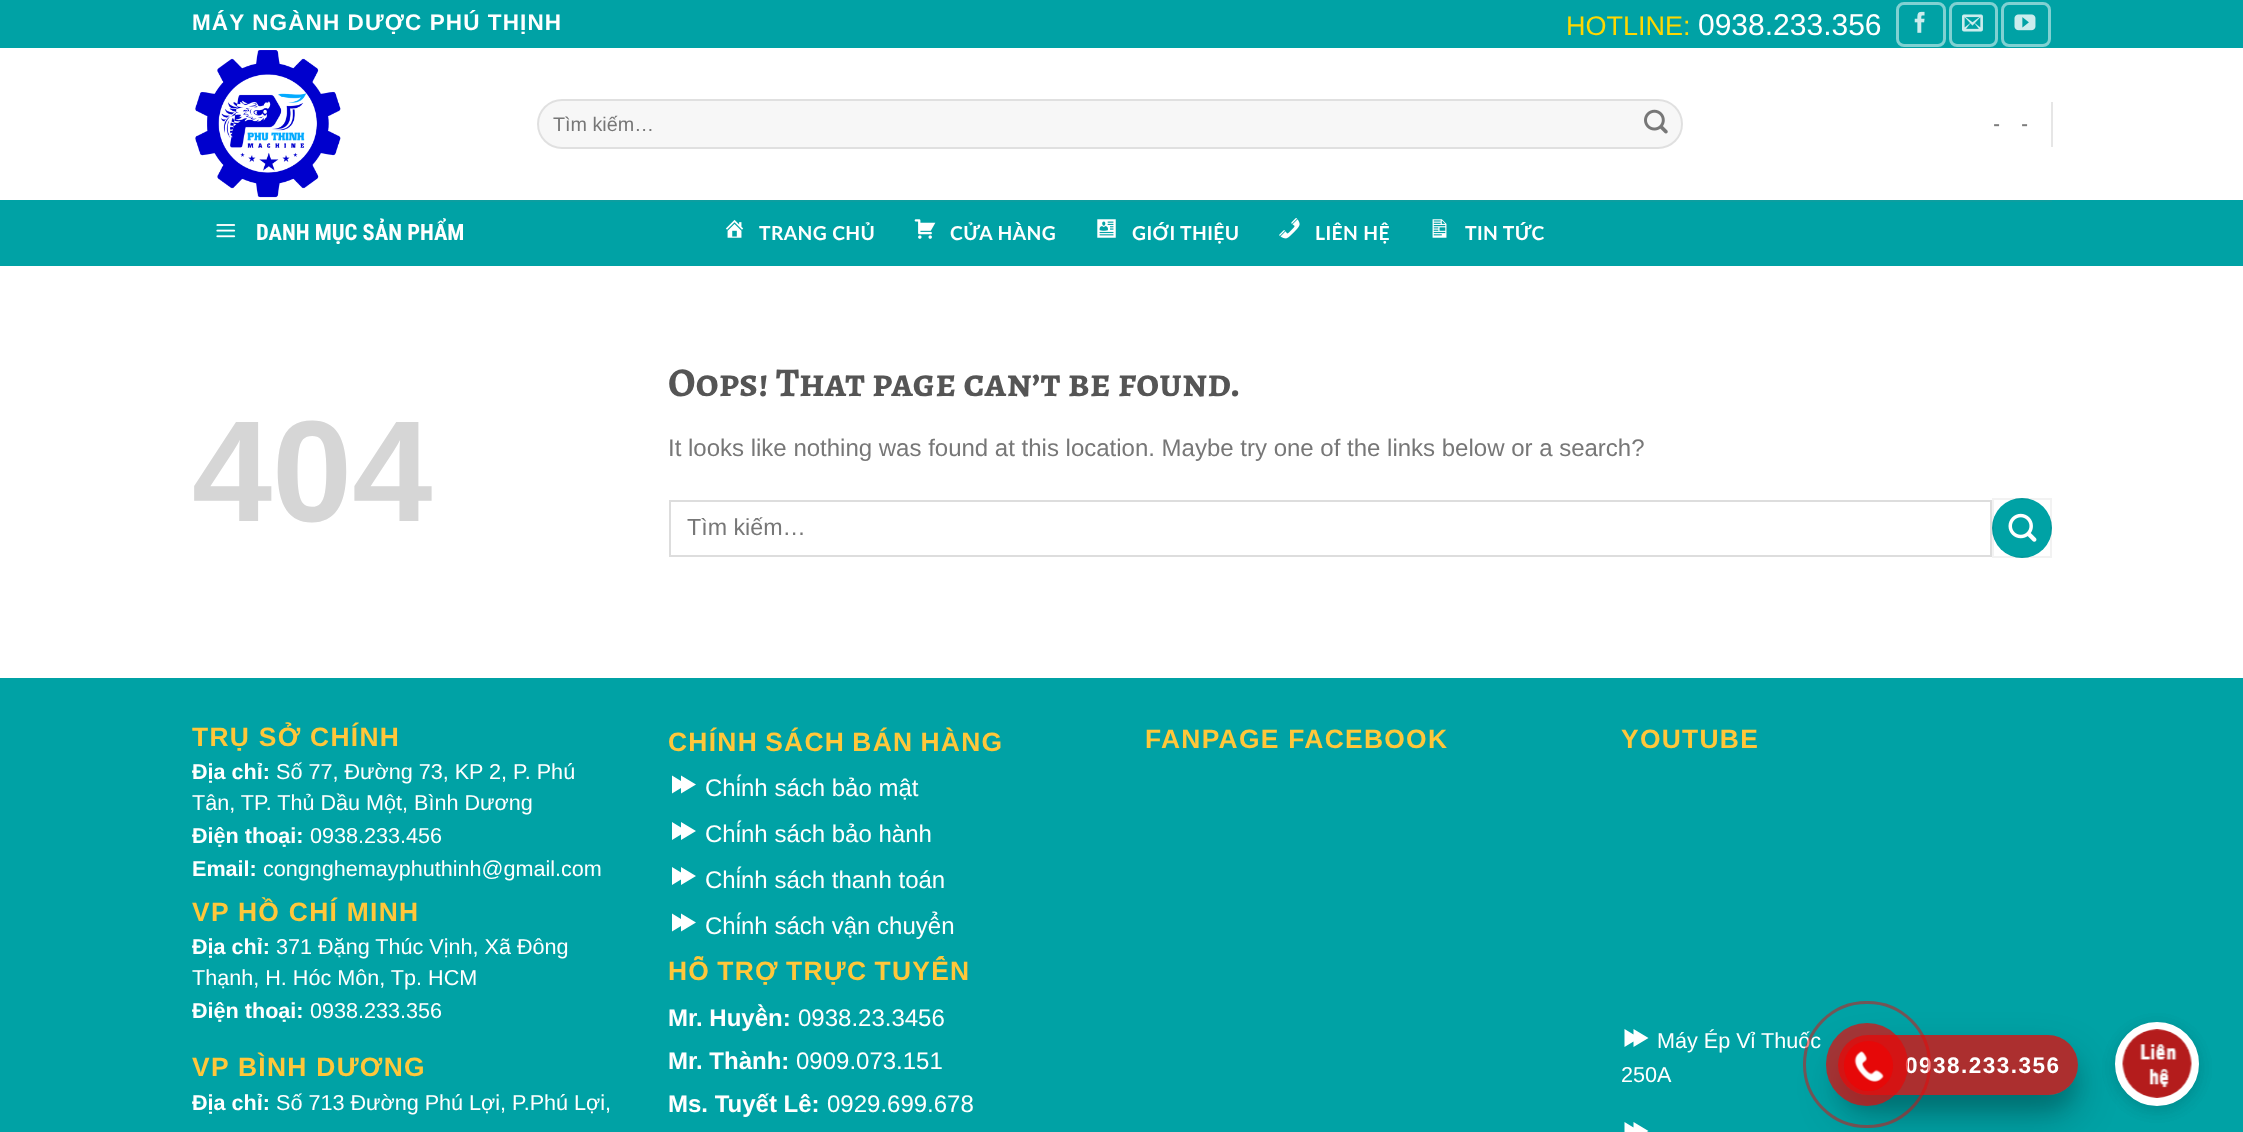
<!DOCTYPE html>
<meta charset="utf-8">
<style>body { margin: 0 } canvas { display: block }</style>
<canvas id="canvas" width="2243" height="1132"></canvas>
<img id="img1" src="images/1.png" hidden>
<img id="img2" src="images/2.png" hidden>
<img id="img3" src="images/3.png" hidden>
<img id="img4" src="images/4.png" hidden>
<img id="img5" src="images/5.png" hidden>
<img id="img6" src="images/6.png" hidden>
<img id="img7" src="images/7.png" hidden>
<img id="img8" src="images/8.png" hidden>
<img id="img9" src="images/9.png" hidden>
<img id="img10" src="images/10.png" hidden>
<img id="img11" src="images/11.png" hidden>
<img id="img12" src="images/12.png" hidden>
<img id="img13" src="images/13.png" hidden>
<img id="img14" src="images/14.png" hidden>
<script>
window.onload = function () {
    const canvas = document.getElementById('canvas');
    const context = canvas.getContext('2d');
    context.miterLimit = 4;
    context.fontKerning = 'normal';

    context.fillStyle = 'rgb(255, 255, 255)';
    context.fillRect(0, 0, 2243, 1132);
    context.fillStyle = 'rgb(0, 162, 165)';
    context.fillRect(0, 0, 2243, 48);
    context.beginPath();
    context.roundRect(1897.5, 3.5, 47, 42, 6.5);
    context.strokeStyle = 'rgb(128, 209, 210)';
    context.lineWidth = 3;
    context.stroke();
    context.drawImage(document.getElementById('img1'), 1914, 11, 11, 22);
    context.beginPath();
    context.roundRect(1950.5, 3.5, 46, 42, 6.5);
    context.stroke();
    context.drawImage(document.getElementById('img2'), 1962, 14, 21, 18);
    context.beginPath();
    context.roundRect(2002.5, 3.5, 47, 42, 6.5);
    context.stroke();
    context.drawImage(document.getElementById('img3'), 2014, 14, 22, 17);
    context.drawImage(document.getElementById('img4'), 195, 50, 146, 148);
    context.fillStyle = 'rgb(247, 247, 247)';
    context.beginPath();
    context.roundRect(537, 99, 1146, 50, 25);
    context.fill();
    context.beginPath();
    context.roundRect(538, 100, 1144, 48, 24);
    context.strokeStyle = 'rgba(0, 0, 0, 0.09)';
    context.lineWidth = 2;
    context.stroke();
    context.drawImage(document.getElementById('img5'), 1644, 109, 24, 25);
    context.fillStyle = 'rgb(230, 230, 230)';
    context.fillRect(2051, 102, 2, 45);
    context.fillStyle = 'rgb(0, 162, 165)';
    context.fillRect(0, 200, 2243, 66);
    context.fillStyle = 'rgb(12, 158, 160)';
    context.fillRect(192, 200, 1860, 2);
    context.drawImage(document.getElementById('img6'), 216, 224, 20, 14);
    context.drawImage(document.getElementById('img7'), 725, 219, 19, 19);
    context.drawImage(document.getElementById('img8'), 914, 219, 22, 20);
    context.drawImage(document.getElementById('img9'), 1097, 219, 19, 19);
    context.drawImage(document.getElementById('img10'), 1279, 218, 21, 21);
    context.drawImage(document.getElementById('img11'), 1432, 219, 15, 19);
    context.strokeStyle = 'rgb(221, 221, 221)';
    context.strokeRect(670, 501, 1321, 55);
    context.fillStyle = 'rgb(0, 162, 165)';
    context.beginPath();
    context.arc(2022, 528, 30, 0, 2 * Math.PI);
    context.fill();
    context.strokeStyle = 'rgba(0, 0, 0, 0.05)';
    context.strokeRect(1993, 499, 58, 58);
    context.drawImage(document.getElementById('img12'), 2008, 513, 29, 29);
    context.fillRect(0, 678, 2243, 454);
    context.fillStyle = 'rgb(255, 255, 255)';
    context.beginPath();
    context.moveTo(696, 784.5);
    context.lineTo(681, 793.5);
    context.lineTo(681, 788);
    context.lineTo(672, 793.5);
    context.lineTo(672, 775.5);
    context.lineTo(681, 781);
    context.lineTo(681, 775.5);
    context.closePath();
    context.fill();
    context.beginPath();
    context.moveTo(696, 831);
    context.lineTo(681, 840);
    context.lineTo(681, 834.5);
    context.lineTo(672, 840);
    context.lineTo(672, 822);
    context.lineTo(681, 827.5);
    context.lineTo(681, 822);
    context.closePath();
    context.fill();
    context.beginPath();
    context.moveTo(696, 876);
    context.lineTo(681, 885);
    context.lineTo(681, 879.5);
    context.lineTo(672, 885);
    context.lineTo(672, 867);
    context.lineTo(681, 872.5);
    context.lineTo(681, 867);
    context.closePath();
    context.fill();
    context.beginPath();
    context.moveTo(696, 922.5);
    context.lineTo(681, 931.5);
    context.lineTo(681, 926);
    context.lineTo(672, 931.5);
    context.lineTo(672, 913.5);
    context.lineTo(681, 919);
    context.lineTo(681, 913.5);
    context.closePath();
    context.fill();
    context.beginPath();
    context.moveTo(1648.5, 1038);
    context.lineTo(1633.5, 1047);
    context.lineTo(1633.5, 1041.5);
    context.lineTo(1624.5, 1047);
    context.lineTo(1624.5, 1029);
    context.lineTo(1633.5, 1034.5);
    context.lineTo(1633.5, 1029);
    context.closePath();
    context.fill();
    context.beginPath();
    context.moveTo(1648.5, 1131);
    context.lineTo(1633.5, 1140);
    context.lineTo(1633.5, 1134.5);
    context.lineTo(1624.5, 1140);
    context.lineTo(1624.5, 1122);
    context.lineTo(1633.5, 1127.5);
    context.lineTo(1633.5, 1122);
    context.closePath();
    context.fill();
    context.fillStyle = 'rgba(0, 0, 0, 0.08)';
    context.filter = 'blur(7.5px)';
    context.beginPath();
    context.roundRect(2115, 1026, 84, 84, 42);
    context.fill();
    context.filter = 'none';
    context.filter = 'blur(7.5px)';
    context.beginPath();
    context.roundRect(2115, 1026, 84, 84, 42);
    context.fill();
    context.filter = 'none';
    context.save();
    context.beginPath();
    context.moveTo(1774, 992);
    context.lineTo(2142, 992);
    context.lineTo(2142, 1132);
    context.lineTo(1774, 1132);
    context.closePath();
    context.moveTo(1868, 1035);
    context.lineTo(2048, 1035);
    context.bezierCurveTo(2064.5, 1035, 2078, 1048.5, 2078, 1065);
    context.bezierCurveTo(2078, 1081.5, 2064.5, 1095, 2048, 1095);
    context.lineTo(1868, 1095);
    context.bezierCurveTo(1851.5, 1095, 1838, 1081.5, 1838, 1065);
    context.bezierCurveTo(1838, 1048.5, 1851.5, 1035, 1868, 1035);
    context.closePath();
    context.clip('evenodd');
    context.fillStyle = 'rgba(0, 0, 0, 0.25)';
    context.filter = 'blur(21px)';
    context.beginPath();
    context.roundRect(1838, 1056, 240, 60, 30);
    context.fill();
    context.filter = 'none';
    context.restore();
    context.fillStyle = 'rgb(255, 255, 255)';
    context.beginPath();
    context.arc(2157, 1064, 38, 0, 2 * Math.PI);
    context.fill();
    context.strokeStyle = 'rgb(255, 255, 255)';
    context.lineWidth = 8;
    context.stroke();
    context.drawImage(document.getElementById('img13'), 2122, 1029, 70, 69);
    context.save();
    context.beginPath();
    context.moveTo(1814, 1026);
    context.lineTo(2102, 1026);
    context.lineTo(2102, 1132);
    context.lineTo(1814, 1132);
    context.closePath();
    context.moveTo(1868, 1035);
    context.lineTo(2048, 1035);
    context.bezierCurveTo(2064.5, 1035, 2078, 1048.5, 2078, 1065);
    context.bezierCurveTo(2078, 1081.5, 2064.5, 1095, 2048, 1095);
    context.lineTo(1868, 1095);
    context.bezierCurveTo(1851.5, 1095, 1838, 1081.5, 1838, 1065);
    context.bezierCurveTo(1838, 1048.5, 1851.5, 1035, 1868, 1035);
    context.closePath();
    context.clip('evenodd');
    context.fillStyle = 'rgba(0, 0, 0, 0.1)';
    context.filter = 'blur(7.5px)';
    context.beginPath();
    context.roundRect(1838, 1050, 240, 60, 30);
    context.fill();
    context.filter = 'none';
    context.restore();
    context.fillStyle = 'rgba(230, 8, 8, 0.75)';
    context.beginPath();
    context.roundRect(1838, 1035, 240, 60, 30);
    context.fill();
    context.letterSpacing = '1.1px';
    context.font = 'bold 22.5px Liberation Sans';
    context.fillStyle = 'rgb(255, 255, 255)';
    context.fillText('MÁY NGÀNH DƯỢC PHÚ THỊNH', 192, 30);
    context.letterSpacing = '0px';
    context.font = '27px Liberation Sans';
    context.fillStyle = 'rgb(255, 215, 0)';
    context.fillText('HOTLINE:', 1566, 35);
    context.font = '30px Liberation Sans';
    context.fillStyle = 'rgb(255, 255, 255)';
    context.fillText('0938.233.356', 1698, 35);
    context.font = '19.75px Liberation Sans';
    context.fillStyle = 'rgb(119, 119, 119)';
    context.fillText('Tìm kiếm…', 553, 131);
    context.letterSpacing = '0.4px';
    context.font = 'bold 19.25px Lato';
    context.fillStyle = 'rgb(125, 125, 125)';
    context.fillText('-', 1993, 131);
    context.fillText('-', 2021, 131);
    context.letterSpacing = '0px';
    context.font = 'bold 22.5px Roboto Condensed';
    context.fillStyle = 'rgb(255, 255, 255)';
    context.fillText('DANH MỤC SẢN PHẨM', 256, 240);
    context.letterSpacing = '0.4px';
    context.font = 'bold 19.25px Lato';
    context.fillText('TRANG CHỦ', 759, 240);
    context.fillText('CỬA HÀNG', 950, 240);
    context.fillText('GIỚI THIỆU', 1132, 240);
    context.fillText('LIÊN HỆ', 1315, 240);
    context.fillText('TIN TỨC', 1465, 240);
    context.letterSpacing = '0px';
    context.font = 'bold 144px Liberation Sans';
    context.fillStyle = 'rgb(214, 214, 214)';
    context.fillText('404', 192, 521);
    context.font = 'bold 40.75px Alegreya SC';
    context.fillStyle = 'rgb(85, 85, 85)';
    context.fillText('Oops! That page can’t be found.', 668, 396);
    context.font = '24px Liberation Sans';
    context.fillStyle = 'rgb(119, 119, 119)';
    context.fillText('It looks like nothing was found at this location. Maybe try one of the links below or a search?', 668, 456);
    context.font = '23.25px Liberation Sans';
    context.fillText('Tìm kiếm…', 687, 535);
    context.letterSpacing = '1.3px';
    context.font = 'bold 26.4px Liberation Sans';
    context.fillStyle = 'rgb(255, 199, 58)';
    context.fillText('TRỤ SỞ CHÍNH', 192, 746);
    context.letterSpacing = '0px';
    context.font = 'bold 21.6px Liberation Sans';
    context.fillStyle = 'rgb(255, 255, 255)';
    context.fillText('Địa chỉ:', 192, 779);
    context.font = '21.6px Liberation Sans';
    context.fillText('Số 77, Đường 73, KP 2, P. Phú', 276, 779);
    context.fillText('Tân, TP. Thủ Dầu Một, Bình Dương', 192, 810);
    context.font = 'bold 21.6px Liberation Sans';
    context.fillText('Điện thoại:', 192, 843);
    context.font = '21.6px Liberation Sans';
    context.fillText('0938.233.456', 310, 843);
    context.font = 'bold 21.6px Liberation Sans';
    context.fillText('Email:', 192, 876);
    context.font = '21.6px Liberation Sans';
    context.fillText('congnghemayphuthinh@gmail.com', 263, 876);
    context.letterSpacing = '1.3px';
    context.font = 'bold 26.4px Liberation Sans';
    context.fillStyle = 'rgb(255, 199, 58)';
    context.fillText('VP HỒ CHÍ MINH', 192, 921);
    context.letterSpacing = '0px';
    context.font = 'bold 21.6px Liberation Sans';
    context.fillStyle = 'rgb(255, 255, 255)';
    context.fillText('Địa chỉ:', 192, 954);
    context.font = '21.6px Liberation Sans';
    context.fillText('371 Đặng Thúc Vịnh, Xã Đông', 276, 954);
    context.fillText('Thạnh, H. Hóc Môn, Tp. HCM', 192, 985);
    context.font = 'bold 21.6px Liberation Sans';
    context.fillText('Điện thoại:', 192, 1018);
    context.font = '21.6px Liberation Sans';
    context.fillText('0938.233.356', 310, 1018);
    context.letterSpacing = '1.3px';
    context.font = 'bold 26.4px Liberation Sans';
    context.fillStyle = 'rgb(255, 199, 58)';
    context.fillText('VP BÌNH DƯƠNG', 192, 1076);
    context.letterSpacing = '0px';
    context.font = 'bold 21.6px Liberation Sans';
    context.fillStyle = 'rgb(255, 255, 255)';
    context.fillText('Địa chỉ:', 192, 1110);
    context.font = '21.6px Liberation Sans';
    context.fillText('Số 713 Đường Phú Lợi, P.Phú Lợi,', 276, 1110);
    context.letterSpacing = '1.3px';
    context.wordSpacing = '-1.5px';
    context.font = 'bold 26.4px Liberation Sans';
    context.fillStyle = 'rgb(255, 199, 58)';
    context.fillText('CHÍNH SÁCH BÁN HÀNG', 668, 751);
    context.letterSpacing = '0px';
    context.wordSpacing = '0px';
    context.font = '24px Liberation Sans';
    context.fillStyle = 'rgb(255, 255, 255)';
    context.fillText('Chính sách bảo mật', 705, 796);
    context.fillText('Chính sách bảo hành', 705, 842);
    context.fillText('Chính sách thanh toán', 705, 888);
    context.fillText('Chính sách vận chuyển', 705, 934);
    context.letterSpacing = '1.3px';
    context.wordSpacing = '-1.5px';
    context.font = 'bold 26.4px Liberation Sans';
    context.fillStyle = 'rgb(255, 199, 58)';
    context.fillText('HỖ TRỢ TRỰC TUYẾN', 668, 980);
    context.letterSpacing = '0px';
    context.wordSpacing = '0px';
    context.font = 'bold 24px Liberation Sans';
    context.fillStyle = 'rgb(255, 255, 255)';
    context.fillText('Mr. Huyền:', 668, 1026);
    context.font = '24px Liberation Sans';
    context.fillText('0938.23.3456', 798, 1026);
    context.font = 'bold 24px Liberation Sans';
    context.fillText('Mr. Thành:', 668, 1069);
    context.font = '24px Liberation Sans';
    context.fillText('0909.073.151', 796, 1069);
    context.font = 'bold 24px Liberation Sans';
    context.fillText('Ms. Tuyết Lê:', 668, 1112);
    context.font = '24px Liberation Sans';
    context.fillText('0929.699.678', 827, 1112);
    context.letterSpacing = '1.3px';
    context.font = 'bold 26.4px Liberation Sans';
    context.fillStyle = 'rgb(255, 199, 58)';
    context.fillText('FANPAGE FACEBOOK', 1145, 748);
    context.fillText('YOUTUBE', 1621, 748);
    context.letterSpacing = '0px';
    context.font = '21.6px Liberation Sans';
    context.fillStyle = 'rgb(255, 255, 255)';
    context.fillText('Máy Ép Vỉ Thuốc', 1657, 1048);
    context.fillText('250A', 1621, 1082);
    context.letterSpacing = '1.5px';
    context.font = 'bold 22.5px Liberation Sans';
    context.fillText('0938.233.356', 1905, 1073);
    context.beginPath();
    context.roundRect(1804.5, 1002.5, 125, 124, 62);
    context.strokeStyle = 'rgba(230, 8, 8, 0.5)';
    context.lineWidth = 3;
    context.stroke();
    context.fillStyle = 'rgba(230, 8, 8, 0.7)';
    context.beginPath();
    context.roundRect(1826, 1023, 82, 83, 41);
    context.fill();
    context.fillStyle = 'rgb(230, 8, 8)';
    context.beginPath();
    context.roundRect(1844, 1041, 49, 50, 24.5);
    context.fill();
    context.drawImage(document.getElementById('img14'), 1854, 1051, 30, 31);
};
</script>
